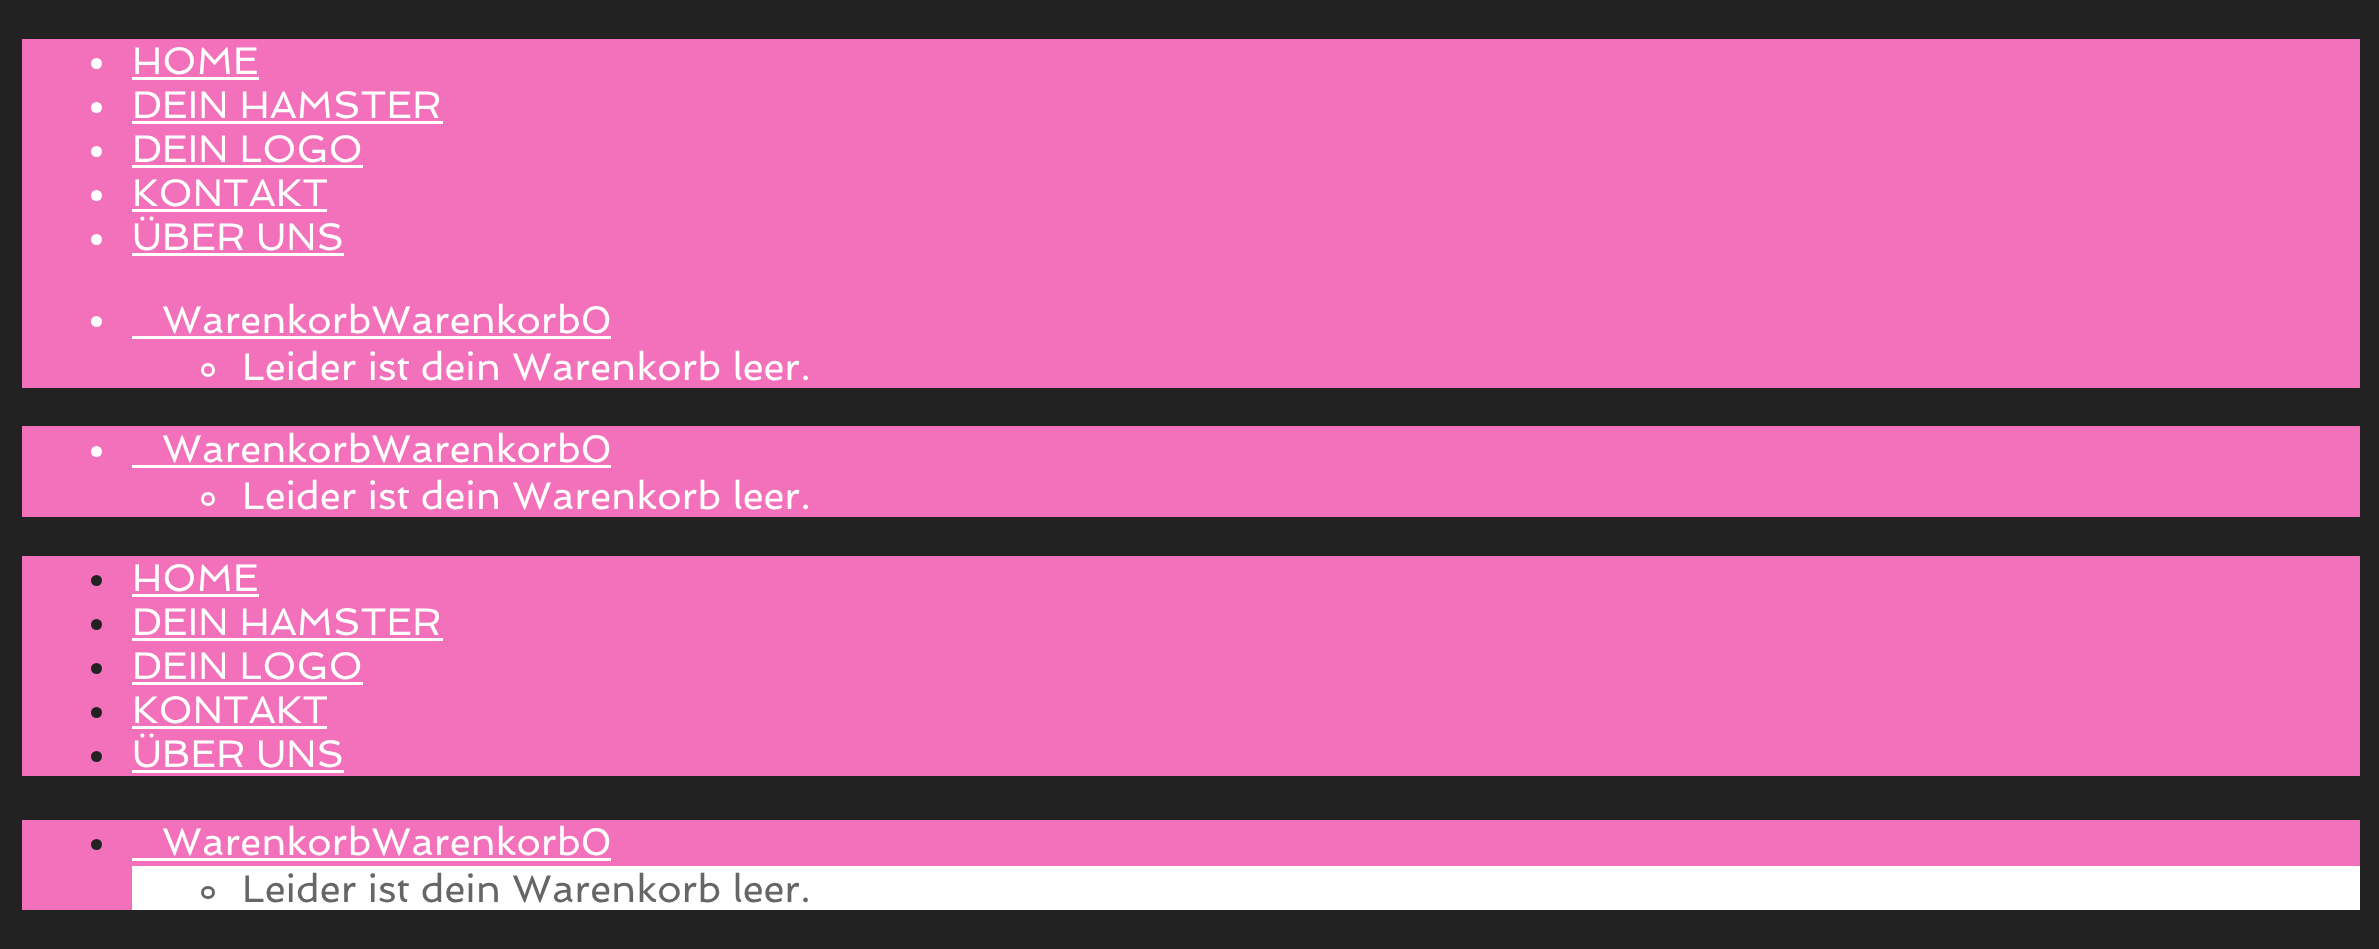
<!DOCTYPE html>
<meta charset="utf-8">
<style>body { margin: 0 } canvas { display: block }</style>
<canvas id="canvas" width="2379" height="949"></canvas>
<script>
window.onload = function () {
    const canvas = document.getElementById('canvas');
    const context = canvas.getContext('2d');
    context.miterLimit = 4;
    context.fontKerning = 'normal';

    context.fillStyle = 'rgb(34, 34, 34)';
    context.fillRect(0, 0, 2379, 949);
    context.fillStyle = 'rgb(242, 113, 186)';
    context.fillRect(22, 39, 2338, 349);
    context.fillStyle = 'rgb(255, 255, 255)';
    context.beginPath();
    context.arc(96.5, 63.5, 5.5, 0, 2 * Math.PI);
    context.fill();
    context.fillRect(132, 77, 127, 3);
    context.beginPath();
    context.arc(96.5, 107.5, 5.5, 0, 2 * Math.PI);
    context.fill();
    context.fillRect(132, 121, 311, 3);
    context.beginPath();
    context.arc(96.5, 151.5, 5.5, 0, 2 * Math.PI);
    context.fill();
    context.fillRect(132, 165, 231, 3);
    context.beginPath();
    context.arc(96.5, 195.5, 5.5, 0, 2 * Math.PI);
    context.fill();
    context.fillRect(132, 209, 195, 3);
    context.beginPath();
    context.arc(96.5, 239.5, 5.5, 0, 2 * Math.PI);
    context.fill();
    context.fillRect(132, 253, 212, 3);
    context.beginPath();
    context.arc(96.5, 321.5, 5.5, 0, 2 * Math.PI);
    context.fill();
    context.fillRect(132, 336, 479, 3);
    context.beginPath();
    context.arc(208, 370, 5.5, 0, 2 * Math.PI);
    context.strokeStyle = 'rgb(255, 255, 255)';
    context.lineWidth = 3;
    context.stroke();
    context.fillStyle = 'rgb(242, 113, 186)';
    context.fillRect(22, 426, 2338, 91);
    context.fillStyle = 'rgb(255, 255, 255)';
    context.beginPath();
    context.arc(96.5, 451.5, 5.5, 0, 2 * Math.PI);
    context.fill();
    context.fillRect(132, 465, 479, 3);
    context.beginPath();
    context.arc(208, 499, 5.5, 0, 2 * Math.PI);
    context.stroke();
    context.fillStyle = 'rgb(242, 113, 186)';
    context.fillRect(22, 556, 2338, 220);
    context.fillStyle = 'rgb(34, 34, 34)';
    context.beginPath();
    context.arc(96.5, 580.5, 5.5, 0, 2 * Math.PI);
    context.fill();
    context.fillStyle = 'rgb(255, 255, 255)';
    context.fillRect(132, 594, 127, 3);
    context.fillStyle = 'rgb(34, 34, 34)';
    context.beginPath();
    context.arc(96.5, 624.5, 5.5, 0, 2 * Math.PI);
    context.fill();
    context.fillStyle = 'rgb(255, 255, 255)';
    context.fillRect(132, 638, 311, 3);
    context.fillStyle = 'rgb(34, 34, 34)';
    context.beginPath();
    context.arc(96.5, 668.5, 5.5, 0, 2 * Math.PI);
    context.fill();
    context.fillStyle = 'rgb(255, 255, 255)';
    context.fillRect(132, 682, 231, 3);
    context.fillStyle = 'rgb(34, 34, 34)';
    context.beginPath();
    context.arc(96.5, 712.5, 5.5, 0, 2 * Math.PI);
    context.fill();
    context.fillStyle = 'rgb(255, 255, 255)';
    context.fillRect(132, 726, 195, 3);
    context.fillStyle = 'rgb(34, 34, 34)';
    context.beginPath();
    context.arc(96.5, 756.5, 5.5, 0, 2 * Math.PI);
    context.fill();
    context.fillStyle = 'rgb(255, 255, 255)';
    context.fillRect(132, 770, 212, 3);
    context.fillStyle = 'rgb(242, 113, 186)';
    context.fillRect(22, 820, 2338, 90);
    context.fillStyle = 'rgb(34, 34, 34)';
    context.beginPath();
    context.arc(96.5, 844.5, 5.5, 0, 2 * Math.PI);
    context.fill();
    context.fillStyle = 'rgb(255, 255, 255)';
    context.fillRect(132, 858, 479, 3);
    context.fillRect(132, 866, 2228, 44);
    context.beginPath();
    context.roundRect(202.5, 887.5, 11, 10, 5);
    context.strokeStyle = 'rgb(102, 102, 102)';
    context.stroke();
    context.font = '38.5px Spinnaker';
    context.fillText('HOME', 132, 74);
    context.fillText('DEIN HAMSTER', 132, 118);
    context.fillText('DEIN LOGO', 132, 162);
    context.fillText('KONTAKT', 132, 206);
    context.fillText('ÜBER UNS', 132, 250);
    context.fillText('WarenkorbWarenkorb0', 162, 333);
    context.fillText('Leider ist dein Warenkorb leer.', 242, 380);
    context.fillText('WarenkorbWarenkorb0', 162, 462);
    context.fillText('Leider ist dein Warenkorb leer.', 242, 509);
    context.fillText('HOME', 132, 591);
    context.fillText('DEIN HAMSTER', 132, 635);
    context.fillText('DEIN LOGO', 132, 679);
    context.fillText('KONTAKT', 132, 723);
    context.fillText('ÜBER UNS', 132, 767);
    context.fillText('WarenkorbWarenkorb0', 162, 855);
    context.fillStyle = 'rgb(102, 102, 102)';
    context.fillText('Leider ist dein Warenkorb leer.', 242, 902);
};
</script>
